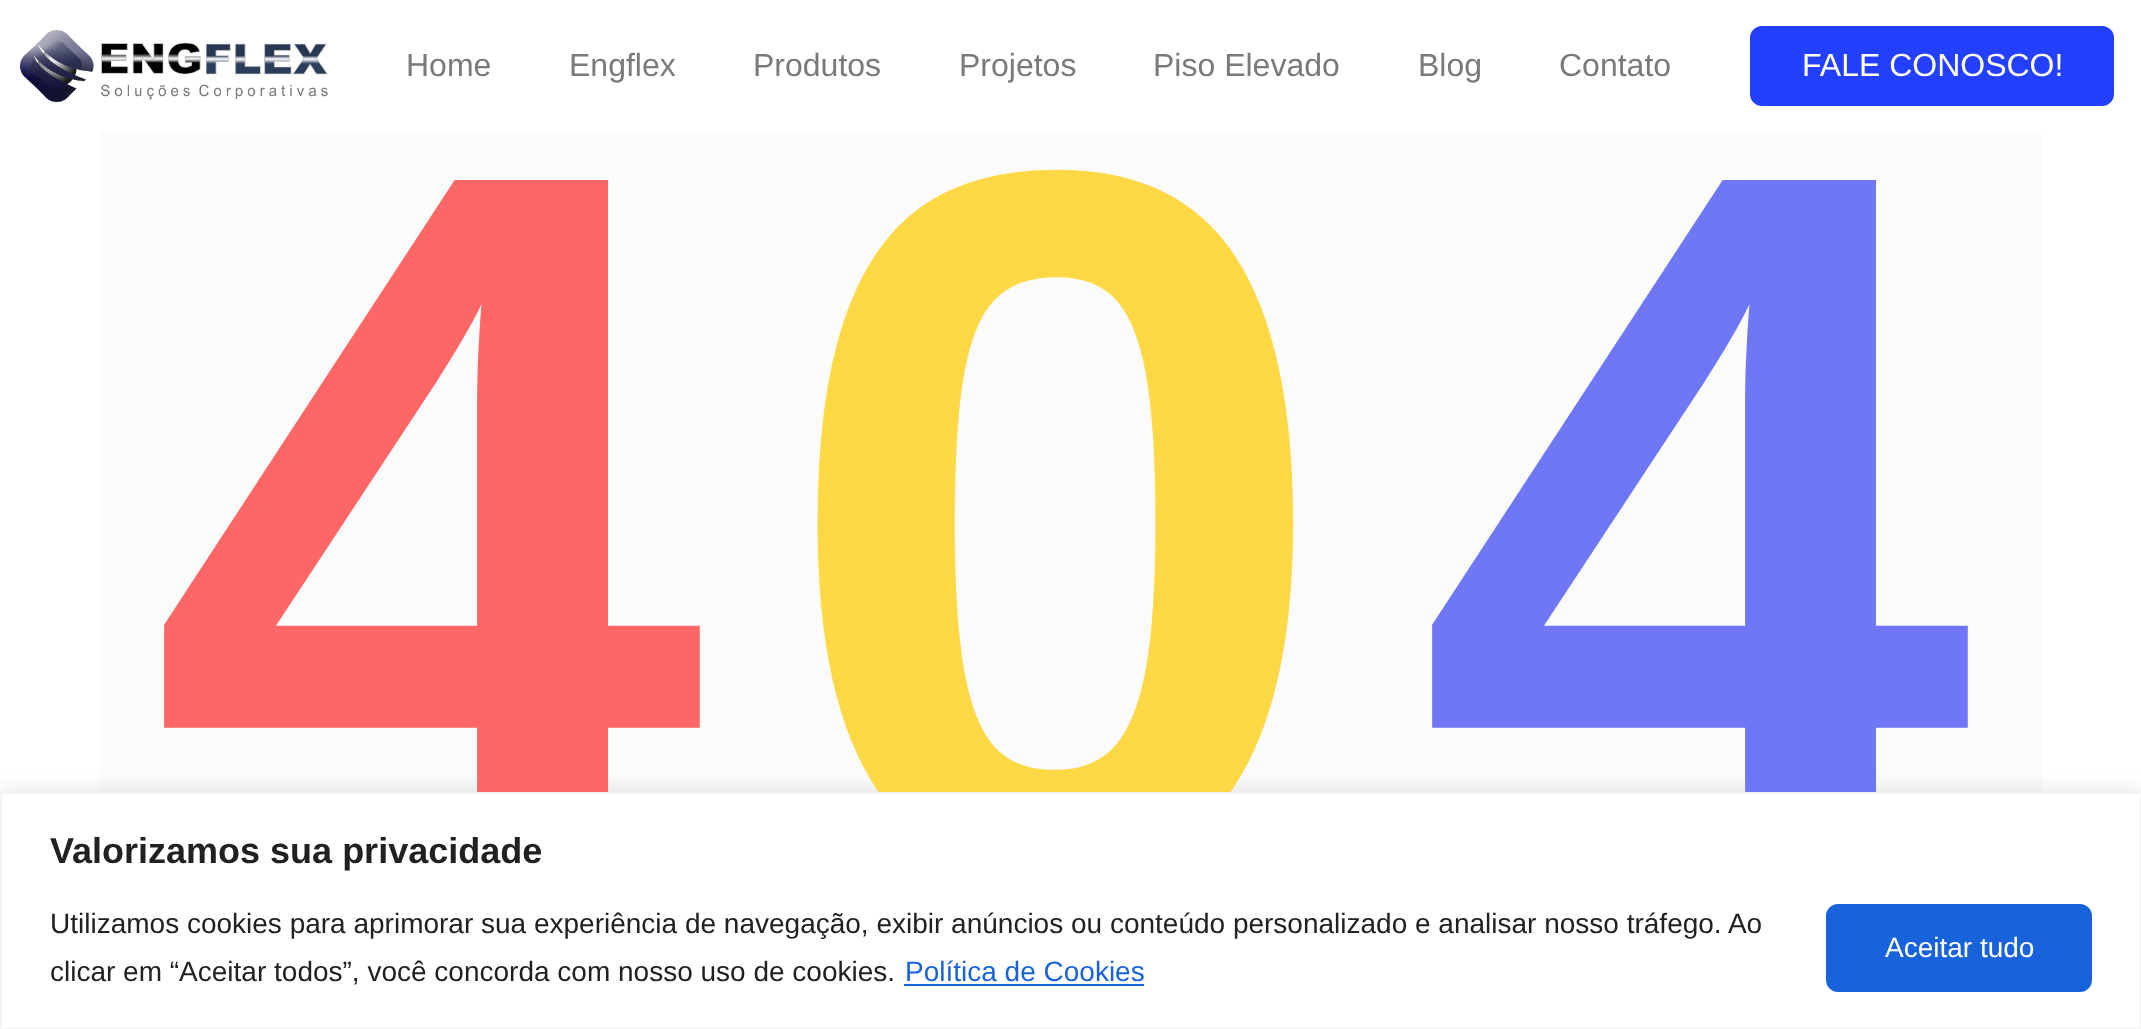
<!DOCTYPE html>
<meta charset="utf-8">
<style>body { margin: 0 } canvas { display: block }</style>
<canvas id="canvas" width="2141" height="1029"></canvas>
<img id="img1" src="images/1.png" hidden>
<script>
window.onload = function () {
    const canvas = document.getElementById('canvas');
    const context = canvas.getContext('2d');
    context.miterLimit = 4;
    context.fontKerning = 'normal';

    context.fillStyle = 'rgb(251, 251, 251)';
    context.fillRect(0, 0, 2141, 1029);
    context.fillStyle = 'rgb(255, 255, 255)';
    context.fillRect(0, 0, 2141, 132);
    context.drawImage(document.getElementById('img1'), 20, 30, 308, 73);
    context.fillStyle = 'rgb(35, 63, 255)';
    context.beginPath();
    context.roundRect(1750, 26, 364, 80, 12);
    context.fill();
    context.fillStyle = 'rgb(255, 255, 255)';
    context.fillRect(2042, 132, 99, 660);
    context.fillRect(0, 132, 100, 660);
    context.fillStyle = 'rgba(172, 171, 171, 0.3)';
    context.filter = 'blur(10px)';
    context.beginPath();
    context.rect(0, 790, 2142, 238);
    context.fill();
    context.filter = 'none';
    context.font = '32px Liberation Sans';
    context.fillStyle = 'rgb(122, 122, 122)';
    context.fillText('Home', 406, 76);
    context.fillText('Engflex', 569, 76);
    context.fillText('Produtos', 753, 76);
    context.fillText('Projetos', 959, 76);
    context.fillText('Piso Elevado', 1153, 76);
    context.fillText('Blog', 1418, 76);
    context.fillText('Contato', 1559, 76);
    context.fillStyle = 'rgb(255, 255, 255)';
    context.fillText('FALE CONOSCO!', 1802, 76);
    context.font = 'bold 1000px Liberation Sans';
    context.fillStyle = 'rgb(255, 102, 102)';
    context.fillText('4', 149, 868);
    context.fillStyle = 'rgb(255, 216, 69)';
    context.fillText('0', 778, 868);
    context.fillStyle = 'rgb(111, 119, 244)';
    context.fillText('4', 1417, 868);
    context.fillStyle = 'rgb(255, 255, 255)';
    context.beginPath();
    context.rect(1, 793, 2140, 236);
    context.fill();
    context.strokeStyle = 'rgb(244, 244, 244)';
    context.lineWidth = 2;
    context.stroke();
    context.font = 'bold 36px Liberation Sans';
    context.fillStyle = 'rgb(33, 33, 33)';
    context.fillText('Valorizamos sua privacidade', 50, 863);
    context.font = '28px Liberation Sans';
    context.fillText('Utilizamos cookies para aprimorar sua experiência de navegação, exibir anúncios ou conteúdo personalizado e analisar nosso tráfego. Ao', 50, 933);
    context.fillText('clicar em “Aceitar todos”, você concorda com nosso uso de cookies.', 50, 981);
    context.fillStyle = 'rgb(24, 99, 220)';
    context.fillText('Política de Cookies', 905, 981);
    context.fillRect(904, 984, 240, 2);
    context.beginPath();
    context.roundRect(1828, 906, 262, 84, 10);
    context.fill();
    context.strokeStyle = 'rgb(24, 99, 220)';
    context.lineWidth = 4;
    context.stroke();
    context.fillStyle = 'rgb(255, 255, 255)';
    context.fillText('Aceitar tudo', 1885, 957);
};
</script>
